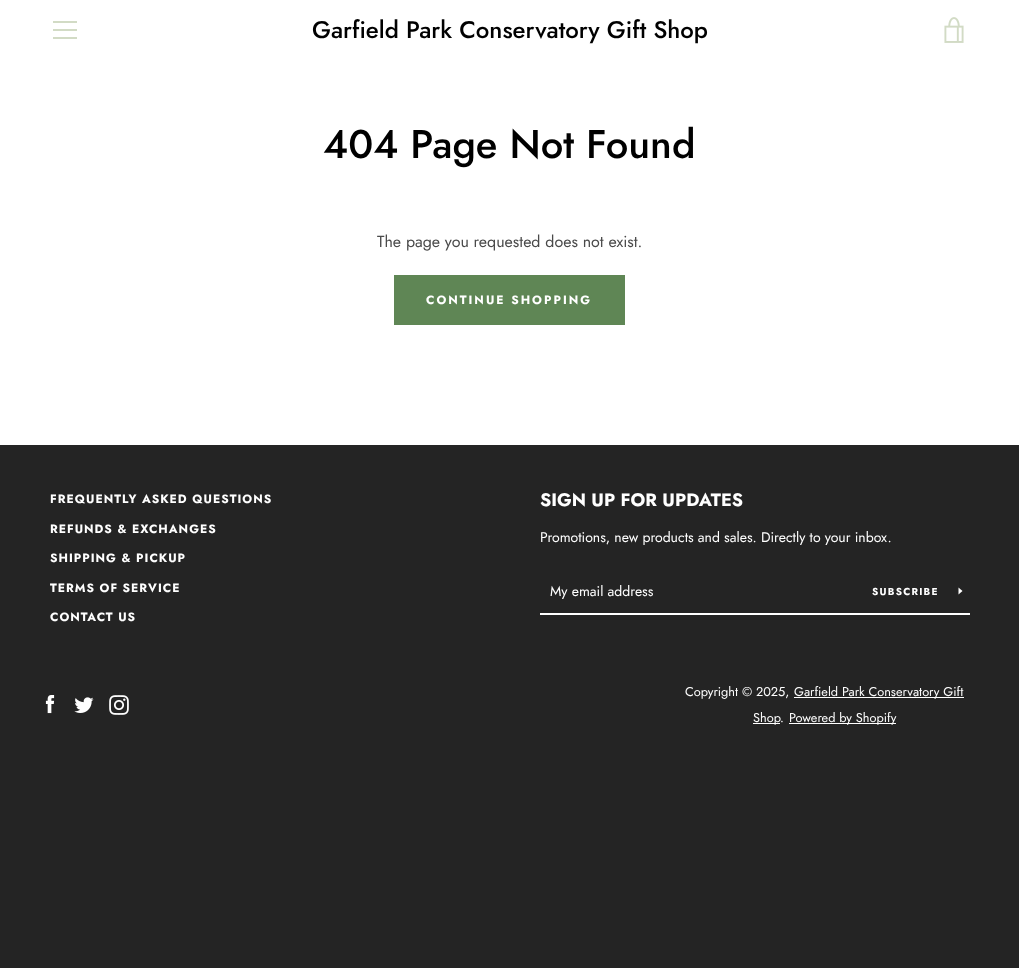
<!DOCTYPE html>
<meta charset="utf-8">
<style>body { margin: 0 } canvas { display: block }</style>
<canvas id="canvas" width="1019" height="968"></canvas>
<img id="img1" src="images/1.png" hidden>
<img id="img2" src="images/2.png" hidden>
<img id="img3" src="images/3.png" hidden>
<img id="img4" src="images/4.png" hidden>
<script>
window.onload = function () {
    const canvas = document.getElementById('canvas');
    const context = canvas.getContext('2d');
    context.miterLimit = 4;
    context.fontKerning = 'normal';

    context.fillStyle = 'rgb(36, 36, 36)';
    context.fillRect(0, 0, 1019, 968);
    context.fillStyle = 'rgb(255, 255, 255)';
    context.fillRect(0, 0, 1019, 445);
    context.fillStyle = 'rgb(210, 219, 197)';
    context.fillRect(53, 21, 24, 2);
    context.fillRect(53, 29, 24, 2);
    context.fillRect(53, 37, 24, 2);
    context.drawImage(document.getElementById('img1'), 944, 17, 20, 26);
    context.fillStyle = 'rgb(95, 134, 85)';
    context.fillRect(394, 275, 231, 50);
    context.fillStyle = 'rgb(255, 255, 255)';
    context.fillRect(540, 613, 430, 2);
    context.beginPath();
    context.moveTo(962.5, 591);
    context.lineTo(958.5, 594.5);
    context.lineTo(958.5, 587.5);
    context.closePath();
    context.fill();
    context.drawImage(document.getElementById('img2'), 45, 695, 10, 19);
    context.drawImage(document.getElementById('img3'), 74, 697, 20, 16);
    context.drawImage(document.getElementById('img4'), 109, 695, 20, 20);
    context.fillRect(794, 697, 170, 1);
    context.fillRect(753, 723, 27, 1);
    context.fillRect(789, 723, 107, 1);
    context.font = '500 24px Jost';
    context.fillStyle = 'rgb(0, 0, 0)';
    context.fillText('Garfield Park Conservatory Gift Shop', 312, 38);
    context.font = '500 40px Jost';
    context.fillText('404 Page Not Found', 323, 158);
    context.font = '16px Jost';
    context.fillStyle = 'rgb(74, 74, 74)';
    context.fillText('The page you requested does not exist.', 377, 247);
    context.letterSpacing = '2px';
    context.font = 'bold 12px Jost';
    context.fillStyle = 'rgb(255, 255, 255)';
    context.fillText('CONTINUE SHOPPING', 426, 304);
    context.letterSpacing = '1px';
    context.fillText('FREQUENTLY ASKED QUESTIONS', 50, 503);
    context.fillText('REFUNDS & EXCHANGES', 50, 533);
    context.fillText('SHIPPING & PICKUP', 50, 562);
    context.fillText('TERMS OF SERVICE', 50, 592);
    context.fillText('CONTACT US', 50, 621);
    context.letterSpacing = '0px';
    context.font = 'bold 18px Jost';
    context.fillText('SIGN UP FOR UPDATES', 540, 506);
    context.font = '14px Jost';
    context.fillText('Promotions, new products and sales. Directly to your inbox.', 540, 542);
    context.fillText('My email address', 550, 596);
    context.letterSpacing = '1.25px';
    context.font = 'bold 10px Jost';
    context.fillText('SUBSCRIBE', 872, 595);
    context.letterSpacing = '0px';
    context.font = '12.75px Jost';
    context.fillText('Copyright © 2025,', 685, 696);
    context.fillText('Garfield Park Conservatory Gift', 794, 696);
    context.fillText('Shop', 753, 722);
    context.fillText('.', 780, 722);
    context.fillText('Powered by Shopify', 789, 722);
};
</script>
